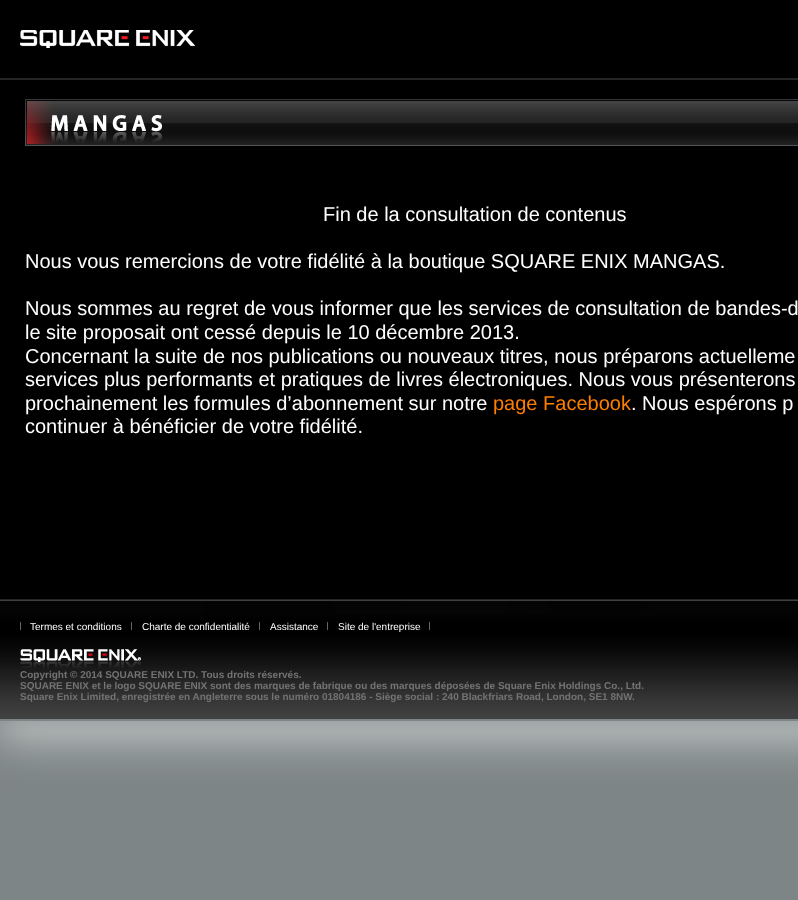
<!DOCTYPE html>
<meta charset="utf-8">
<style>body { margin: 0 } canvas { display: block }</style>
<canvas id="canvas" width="798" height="900"></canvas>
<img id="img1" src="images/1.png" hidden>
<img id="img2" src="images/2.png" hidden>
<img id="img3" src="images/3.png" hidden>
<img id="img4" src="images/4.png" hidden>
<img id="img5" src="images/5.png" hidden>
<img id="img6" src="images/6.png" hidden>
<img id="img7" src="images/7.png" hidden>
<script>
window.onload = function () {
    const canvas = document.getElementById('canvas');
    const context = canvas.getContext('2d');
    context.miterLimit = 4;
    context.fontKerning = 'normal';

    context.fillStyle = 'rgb(125, 133, 134)';
    context.fillRect(0, 0, 798, 900);
    context.drawImage(document.getElementById('img1'), 0, 0, 798, 78);
    context.fillStyle = 'rgb(0, 0, 0)';
    context.fillRect(0, 80, 798, 519);
    context.fillStyle = 'rgb(37, 37, 37)';
    context.fillRect(0, 78, 798, 2);
    context.drawImage(document.getElementById('img2'), 20, 30, 175, 18);
    context.drawImage(document.getElementById('img3'), 25, 99, 773, 47);
    context.drawImage(document.getElementById('img4'), 30, 115, 132, 29);
    context.drawImage(document.getElementById('img5'), 0, 601, 798, 188);
    context.drawImage(document.getElementById('img6'), 0, 599, 798, 2);
    context.fillStyle = 'rgb(102, 100, 100)';
    context.fillRect(20, 622, 1, 8);
    context.fillRect(131, 622, 1, 8);
    context.fillRect(259, 622, 1, 8);
    context.fillRect(327, 622, 1, 8);
    context.fillRect(429, 622, 1, 8);
    context.drawImage(document.getElementById('img7'), 20, 649, 121, 19);
    context.font = '20px Liberation Sans';
    context.fillStyle = 'rgb(255, 255, 255)';
    context.fillText('Fin de la consultation de contenus', 323, 221);
    context.fillText('Nous vous remercions de votre fidélité à la boutique SQUARE ENIX MANGAS.', 25, 268);
    context.fillText('Nous sommes au regret de vous informer que les services de consultation de bandes-d', 25, 315);
    context.fillText('le site proposait ont cessé depuis le 10 décembre 2013.', 25, 339);
    context.fillText('Concernant la suite de nos publications ou nouveaux titres, nous préparons actuelleme', 25, 363);
    context.fillText('services plus performants et pratiques de livres électroniques. Nous vous présenterons', 25, 386);
    context.fillText('prochainement les formules d’abonnement sur notre', 25, 410);
    context.fillStyle = 'rgb(255, 126, 0)';
    context.fillText('page Facebook', 493, 410);
    context.fillStyle = 'rgb(255, 255, 255)';
    context.fillText('. Nous espérons p', 631, 410);
    context.fillText('continuer à bénéficier de votre fidélité.', 25, 433);
    context.font = '10px Liberation Sans';
    context.fillText('Termes et conditions', 30, 630);
    context.fillText('Charte de confidentialité', 142, 630);
    context.fillText('Assistance', 270, 630);
    context.fillText('Site de l\'entreprise', 338, 630);
    context.font = 'bold 10px Liberation Sans';
    context.fillStyle = 'rgb(115, 115, 115)';
    context.fillText('Copyright © 2014 SQUARE ENIX LTD. Tous droits réservés.', 20, 678);
    context.fillText('SQUARE ENIX et le logo SQUARE ENIX sont des marques de fabrique ou des marques déposées de Square Enix Holdings Co., Ltd.', 20, 689);
    context.fillText('Square Enix Limited, enregistrée en Angleterre sous le numéro 01804186 - Siège social : 240 Blackfriars Road, London, SE1 8NW.', 20, 700);
};
</script>
